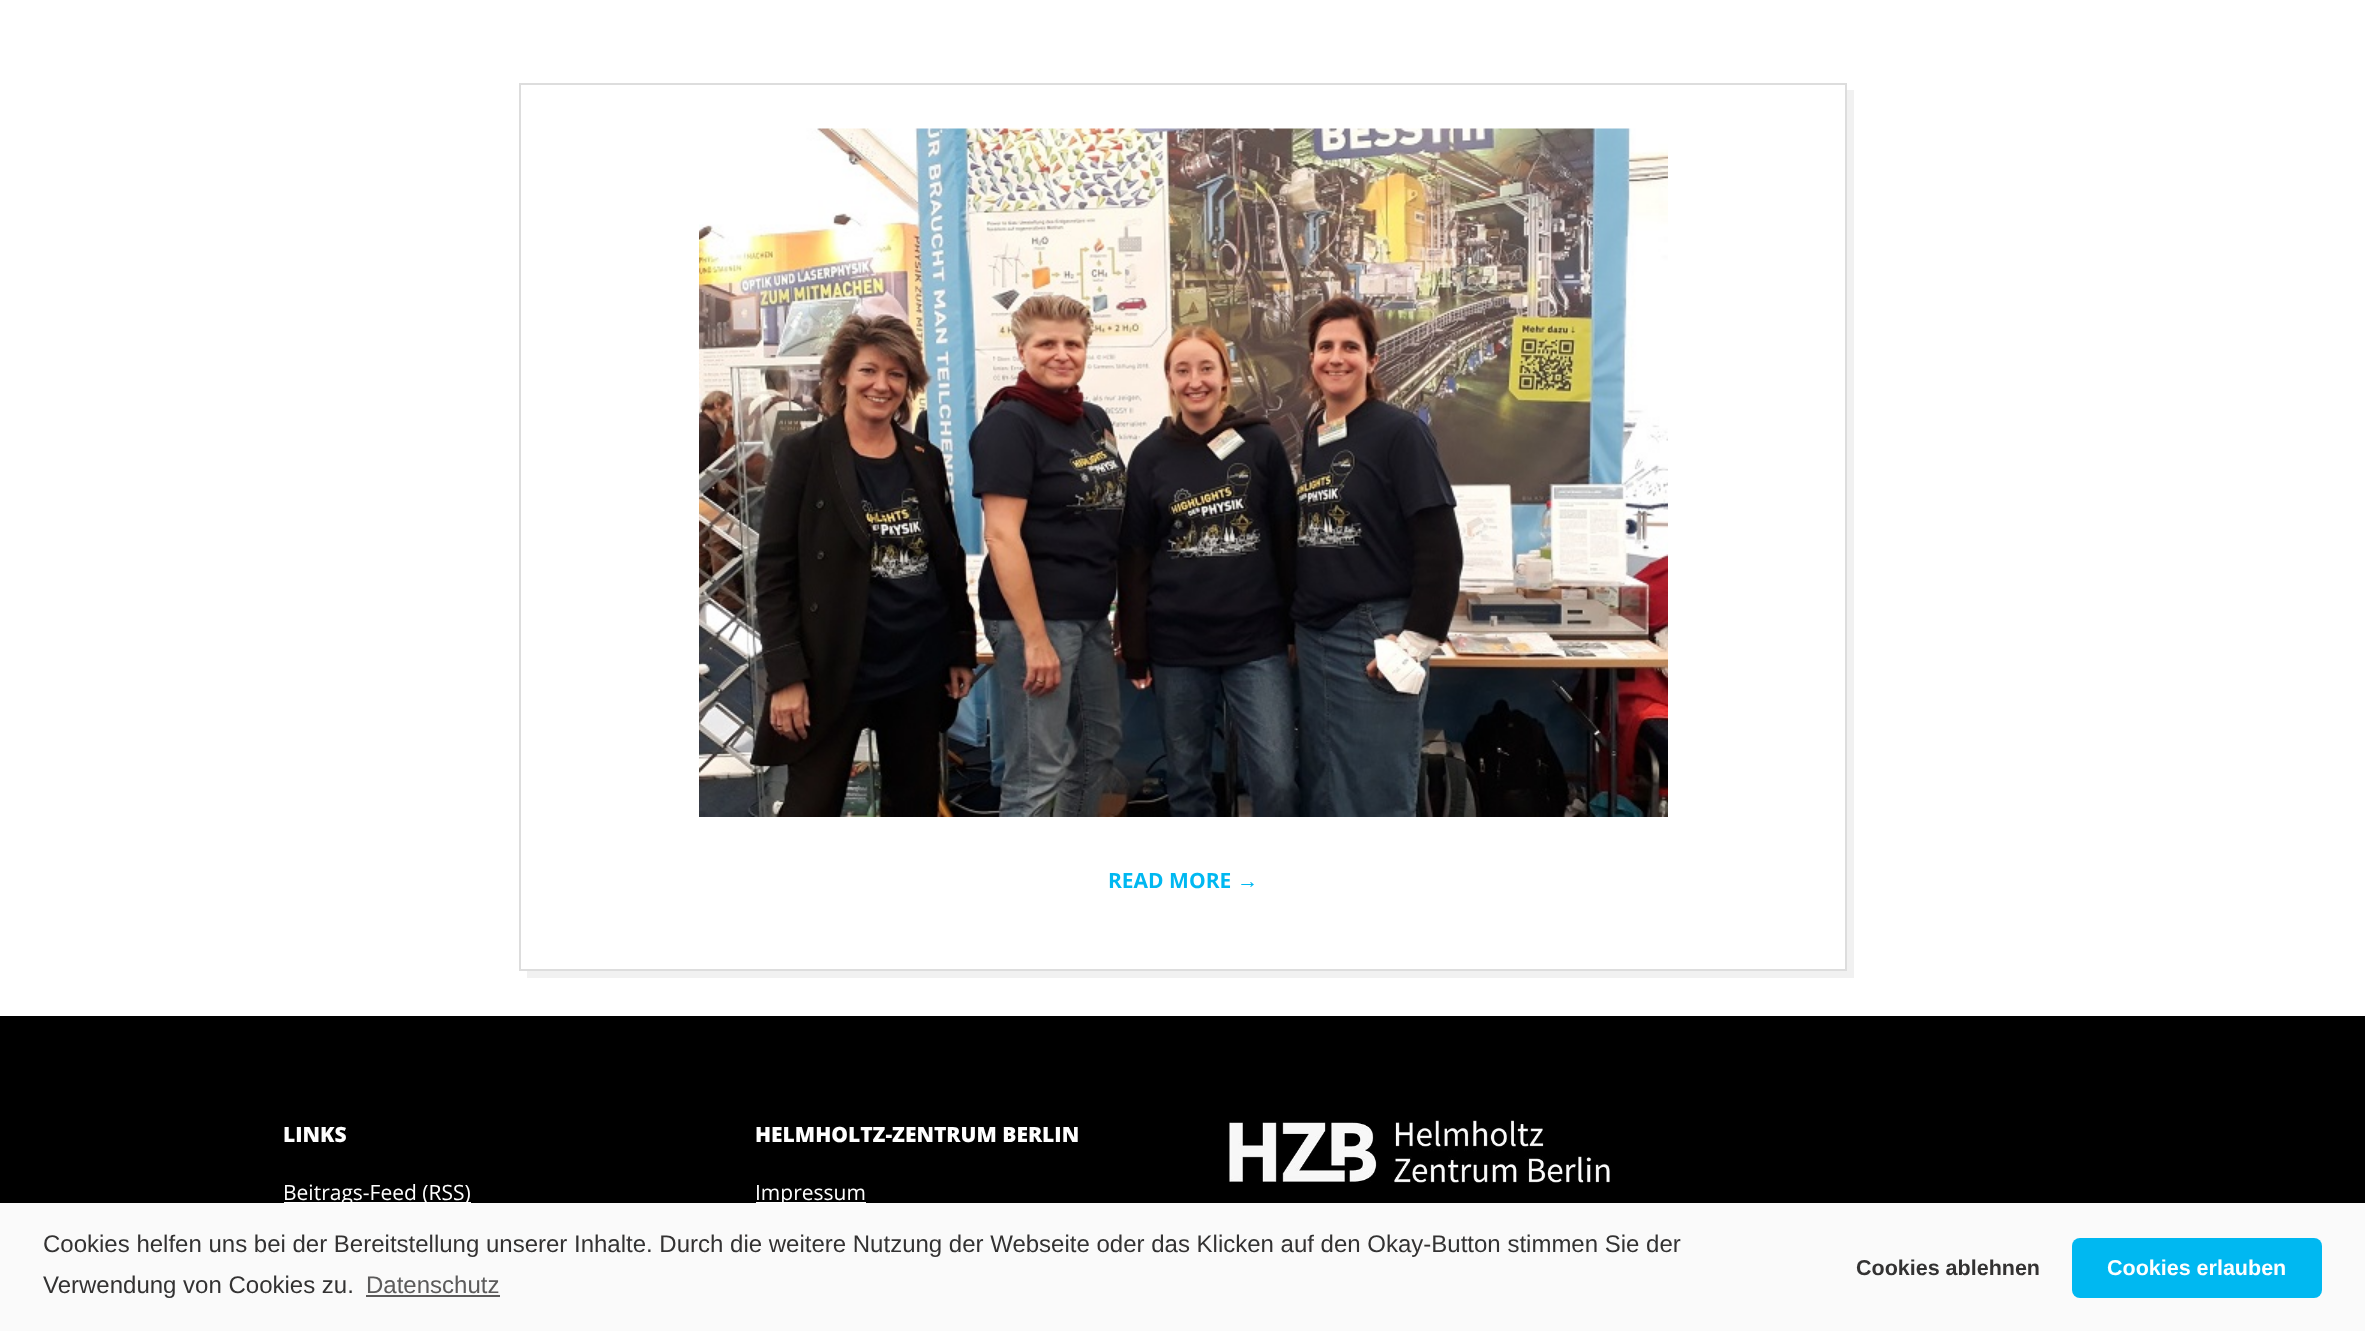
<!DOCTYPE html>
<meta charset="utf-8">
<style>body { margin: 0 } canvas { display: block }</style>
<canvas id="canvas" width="2365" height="1331"></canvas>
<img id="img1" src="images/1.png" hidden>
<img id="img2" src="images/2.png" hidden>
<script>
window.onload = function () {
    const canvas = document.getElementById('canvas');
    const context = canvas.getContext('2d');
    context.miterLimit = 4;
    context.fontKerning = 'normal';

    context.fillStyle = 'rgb(255, 255, 255)';
    context.fillRect(0, 0, 2365, 1331);
    context.fillStyle = 'rgb(241, 241, 241)';
    context.beginPath();
    context.moveTo(527, 970);
    context.lineTo(527, 978);
    context.lineTo(1854, 978);
    context.lineTo(1854, 90);
    context.lineTo(1846, 90);
    context.lineTo(1846, 970);
    context.closePath();
    context.fill();
    context.strokeStyle = 'rgb(221, 221, 221)';
    context.lineWidth = 2;
    context.strokeRect(520, 84, 1326, 886);
    context.drawImage(document.getElementById('img1'), 699, 128, 969, 689);
    context.fillStyle = 'rgb(0, 0, 0)';
    context.fillRect(0, 1016, 2365, 187);
    context.fillStyle = 'rgb(255, 255, 255)';
    context.fillRect(284, 1202, 187, 1);
    context.fillRect(756, 1202, 110, 1);
    context.drawImage(document.getElementById('img2'), 1229, 1120, 381, 63);
    context.font = 'bold 21px Open Sans';
    context.fillStyle = 'rgb(0, 184, 241)';
    context.fillText('READ MORE', 1108, 888);
    context.font = 'bold 21px Liberation Sans';
    context.fillText('→', 1237, 888);
    context.font = '800 21px Open Sans';
    context.fillStyle = 'rgb(255, 255, 255)';
    context.fillText('LINKS', 283, 1142);
    context.font = '21px Open Sans';
    context.fillText('Beitrags-Feed (RSS)', 283, 1200);
    context.font = '800 21px Open Sans';
    context.fillText('HELMHOLTZ-ZENTRUM BERLIN', 755, 1142);
    context.font = '21px Open Sans';
    context.fillText('Impressum', 755, 1200);
    context.fillStyle = 'rgb(250, 250, 250)';
    context.fillRect(0, 1203, 2365, 128);
    context.font = '24px Liberation Sans';
    context.fillStyle = 'rgb(51, 50, 50)';
    context.fillText('Cookies helfen uns bei der Bereitstellung unserer Inhalte. Durch die weitere Nutzung der Webseite oder das Klicken auf den Okay-Button stimmen Sie der', 43, 1252);
    context.fillText('Verwendung von Cookies zu.', 43, 1293);
    context.fillStyle = 'rgb(91, 90, 90)';
    context.fillText('Datenschutz', 366, 1293);
    context.fillRect(366, 1295, 134, 2);
    context.font = 'bold 21.5px Liberation Sans';
    context.fillStyle = 'rgb(51, 50, 50)';
    context.fillText('Cookies ablehnen', 1856, 1275);
    context.fillStyle = 'rgb(0, 184, 241)';
    context.beginPath();
    context.roundRect(2072, 1238, 250, 60, 8);
    context.fill();
    context.fillStyle = 'rgb(255, 255, 255)';
    context.fillText('Cookies erlauben', 2107, 1275);
};
</script>
